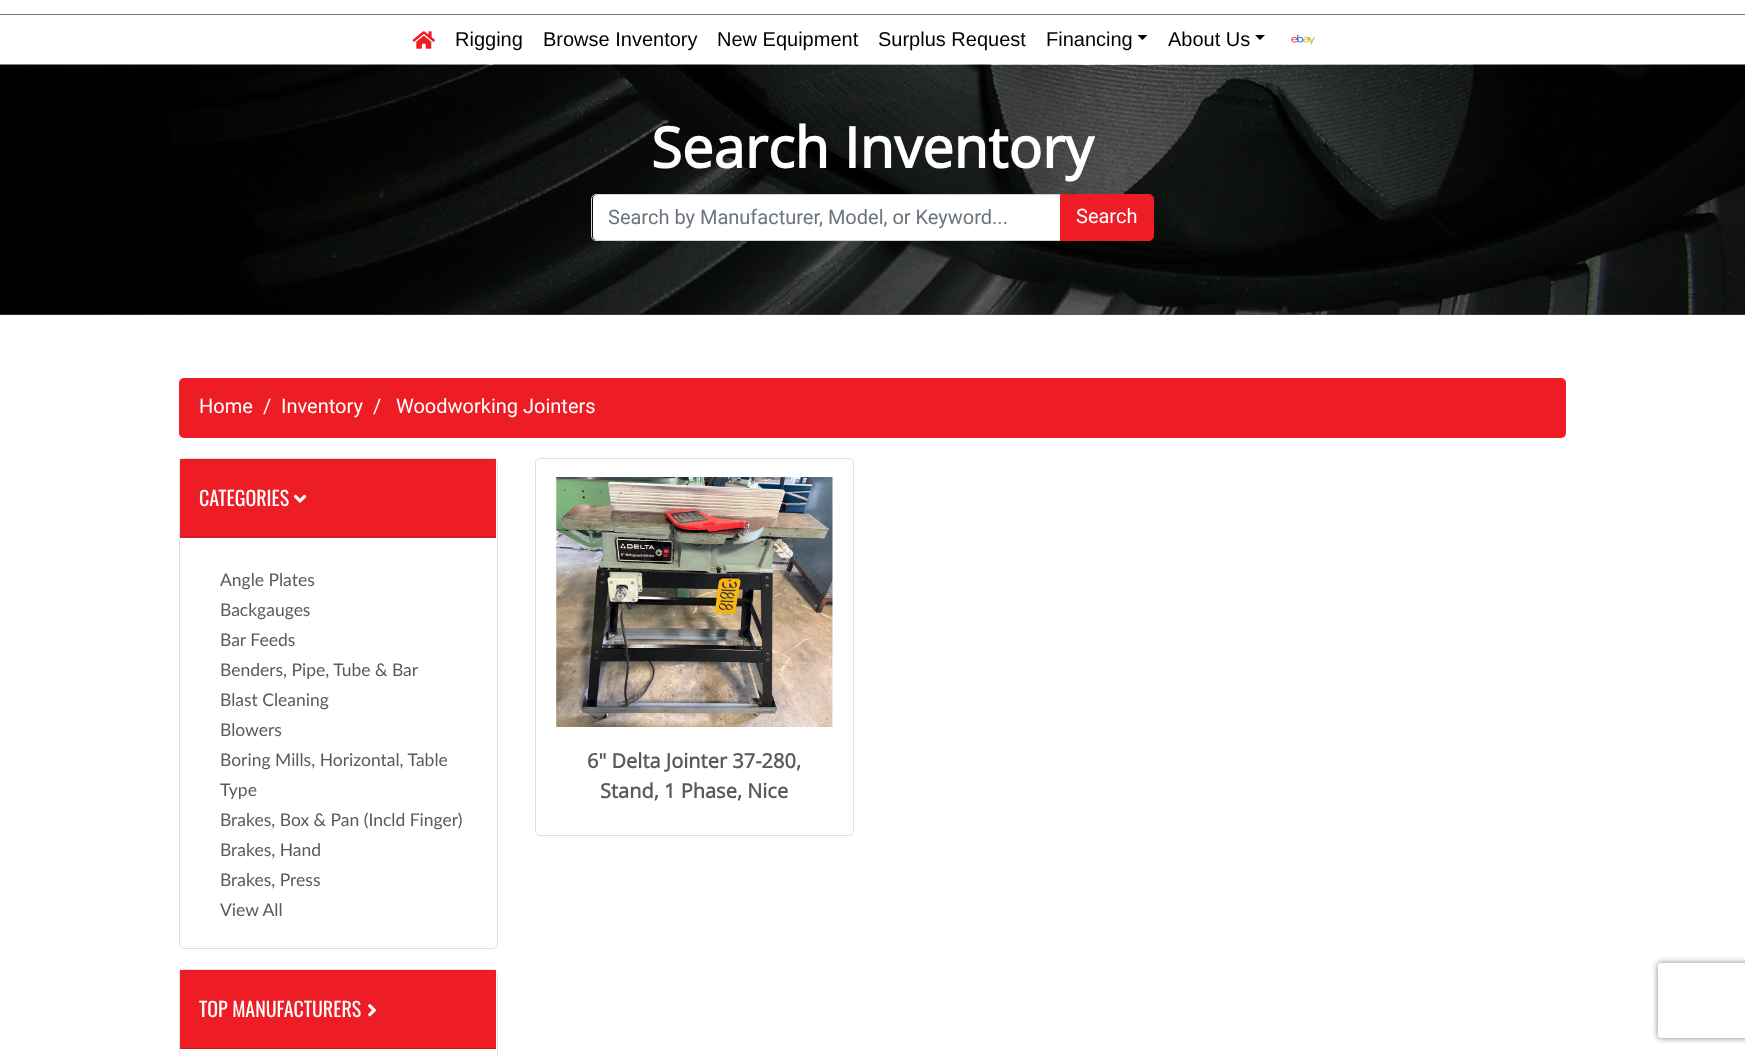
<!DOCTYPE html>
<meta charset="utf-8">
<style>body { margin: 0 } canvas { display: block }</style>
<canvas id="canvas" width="1745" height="1055"></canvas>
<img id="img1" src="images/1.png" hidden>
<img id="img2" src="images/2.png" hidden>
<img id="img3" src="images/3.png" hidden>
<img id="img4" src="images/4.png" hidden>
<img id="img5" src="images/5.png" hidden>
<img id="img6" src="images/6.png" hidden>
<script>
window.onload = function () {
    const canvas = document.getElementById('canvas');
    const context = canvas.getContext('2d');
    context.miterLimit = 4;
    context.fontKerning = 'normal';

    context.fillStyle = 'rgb(255, 255, 255)';
    context.fillRect(0, 0, 1745, 1055);
    context.fillStyle = 'rgb(89, 89, 89)';
    context.fillRect(0, 314, 1745, 1);
    context.fillStyle = 'rgb(108, 117, 125)';
    context.fillRect(0, 14, 1745, 1);
    context.drawImage(document.getElementById('img1'), 412, 31, 23, 18);
    context.fillStyle = 'rgb(0, 0, 0)';
    context.beginPath();
    context.moveTo(1137.5, 35);
    context.lineTo(1147.5, 35);
    context.lineTo(1142.5, 40);
    context.closePath();
    context.fill();
    context.beginPath();
    context.moveTo(1255, 35);
    context.lineTo(1265, 35);
    context.lineTo(1260, 40);
    context.closePath();
    context.fill();
    context.drawImage(document.getElementById('img2'), 1291, 34, 24, 11);
    context.drawImage(document.getElementById('img3'), 0, 64, 1745, 251);
    context.fillStyle = 'rgb(255, 255, 255)';
    context.beginPath();
    context.roundRect(593, 195, 467, 45, [4, 0, 0, 4]);
    context.fill();
    context.beginPath();
    context.roundRect(591.5, 194.5, 469, 46, [4.5, 0, 0, 4.5]);
    context.strokeStyle = 'rgb(206, 212, 218)';
    context.stroke();
    context.fillStyle = 'rgb(238, 28, 37)';
    context.beginPath();
    context.roundRect(1060.5, 194.5, 93, 46, [0, 4.5, 4.5, 0]);
    context.fill();
    context.strokeStyle = 'rgb(238, 28, 37)';
    context.stroke();
    context.beginPath();
    context.roundRect(179, 378, 1387, 60, 5);
    context.fill();
    context.beginPath();
    context.roundRect(179.5, 458.5, 318, 490, 4.5);
    context.strokeStyle = 'rgb(223, 223, 223)';
    context.stroke();
    context.fillRect(180, 459, 316, 79);
    context.fillStyle = 'rgb(208, 25, 32)';
    context.fillRect(180, 536, 316, 1);
    context.drawImage(document.getElementById('img4'), 293, 494, 14, 9);
    context.beginPath();
    context.roundRect(179.5, 969.5, 318, 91, 4.5);
    context.stroke();
    context.fillStyle = 'rgb(238, 28, 37)';
    context.fillRect(180, 970, 316, 78);
    context.fillStyle = 'rgb(208, 25, 32)';
    context.fillRect(180, 1048, 316, 1);
    context.drawImage(document.getElementById('img5'), 368, 1004, 8, 13);
    context.beginPath();
    context.roundRect(535.5, 458.5, 318, 377, 4.5);
    context.stroke();
    context.drawImage(document.getElementById('img6'), 556, 477, 277, 250);
    context.save();
    context.beginPath();
    context.moveTo(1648, 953);
    context.lineTo(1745, 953);
    context.lineTo(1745, 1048);
    context.lineTo(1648, 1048);
    context.closePath();
    context.moveTo(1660.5, 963);
    context.lineTo(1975.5, 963);
    context.bezierCurveTo(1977, 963, 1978, 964, 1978, 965.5);
    context.lineTo(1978, 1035.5);
    context.bezierCurveTo(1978, 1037, 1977, 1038, 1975.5, 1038);
    context.lineTo(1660.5, 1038);
    context.bezierCurveTo(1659, 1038, 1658, 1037, 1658, 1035.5);
    context.lineTo(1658, 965.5);
    context.bezierCurveTo(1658, 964, 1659, 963, 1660.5, 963);
    context.closePath();
    context.clip('evenodd');
    context.fillStyle = 'rgb(128, 128, 128)';
    context.filter = 'blur(3px)';
    context.beginPath();
    context.roundRect(1658, 963, 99, 75, 2.5);
    context.fill();
    context.filter = 'none';
    context.restore();
    context.font = '20px Liberation Sans';
    context.fillStyle = 'rgb(0, 0, 0)';
    context.fillText('Rigging', 455, 46);
    context.fillText('Browse Inventory', 543, 46);
    context.fillText('New Equipment', 717, 46);
    context.fillText('Surplus Request', 878, 46);
    context.fillText('Financing', 1046, 46);
    context.fillText('About Us', 1168, 46);
    context.font = 'bold 56.25px Open Sans';
    context.fillStyle = 'rgb(255, 255, 255)';
    context.fillText('Search Inventory', 651, 168);
    context.font = '20px Roboto';
    context.fillStyle = 'rgb(108, 117, 125)';
    context.fillText('Search by Manufacturer, Model, or Keyword...', 608, 224);
    context.fillStyle = 'rgb(255, 255, 255)';
    context.fillText('Search', 1076, 223);
    context.fillText('Home', 199, 413);
    context.fillText('/', 263, 413);
    context.fillText('Inventory', 281, 413);
    context.fillText('/', 373, 413);
    context.fillText('Woodworking Jointers', 396, 413);
    context.font = '20px Oswald';
    context.fillText('CATEGORIES', 199, 506);
    context.font = '17.5px Lato';
    context.fillStyle = 'rgb(90, 90, 90)';
    context.fillText('Angle Plates', 220, 586);
    context.fillText('Backgauges', 220, 616);
    context.fillText('Bar Feeds', 220, 646);
    context.fillText('Benders, Pipe, Tube & Bar', 220, 676);
    context.fillText('Blast Cleaning', 220, 706);
    context.fillText('Blowers', 220, 736);
    context.fillText('Boring Mills, Horizontal, Table', 220, 766);
    context.fillText('Type', 220, 796);
    context.fillText('Brakes, Box & Pan (Incld Finger)', 220, 826);
    context.fillText('Brakes, Hand', 220, 856);
    context.fillText('Brakes, Press', 220, 886);
    context.fillText('View All', 220, 916);
    context.font = '20px Oswald';
    context.fillStyle = 'rgb(255, 255, 255)';
    context.fillText('TOP MANUFACTURERS', 199, 1017);
    context.font = 'bold 20px Open Sans';
    context.fillStyle = 'rgb(90, 90, 90)';
    context.fillText('6" Delta Jointer 37-280,', 587, 768);
    context.fillText('Stand, 1 Phase, Nice', 600, 798);
};
</script>
